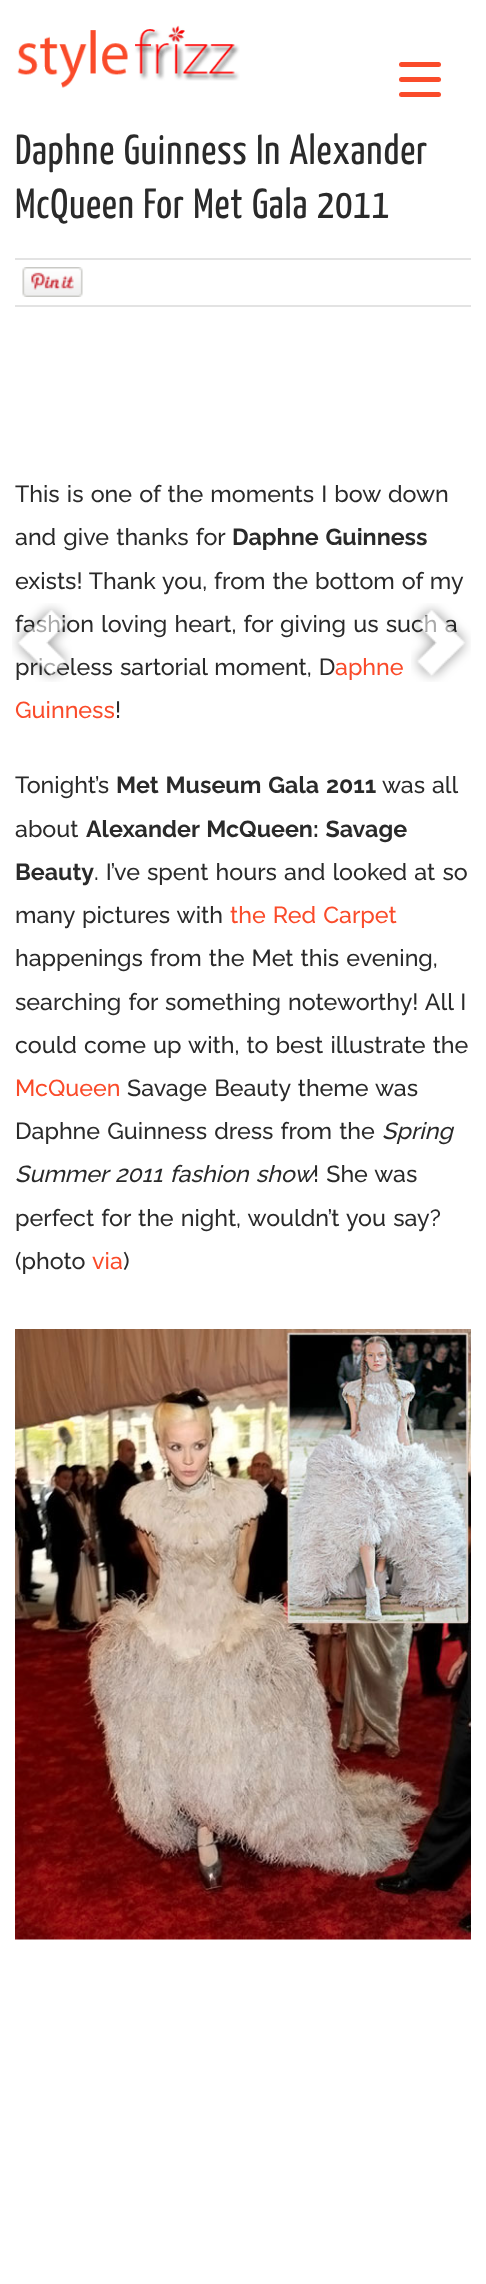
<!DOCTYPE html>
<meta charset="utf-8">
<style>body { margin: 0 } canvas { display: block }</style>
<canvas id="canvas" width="486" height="2284"></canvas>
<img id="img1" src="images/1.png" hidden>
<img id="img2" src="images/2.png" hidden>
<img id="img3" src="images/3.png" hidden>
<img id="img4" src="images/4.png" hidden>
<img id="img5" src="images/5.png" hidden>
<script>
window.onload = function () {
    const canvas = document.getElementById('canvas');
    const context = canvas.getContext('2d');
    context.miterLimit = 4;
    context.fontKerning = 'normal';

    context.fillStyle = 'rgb(255, 255, 255)';
    context.fillRect(0, 0, 486, 2284);
    context.drawImage(document.getElementById('img1'), 17, 25, 223, 63);
    context.fillStyle = 'rgb(250, 75, 42)';
    context.beginPath();
    context.roundRect(399, 77, 42, 5, 2.5);
    context.fill();
    context.beginPath();
    context.roundRect(399, 62, 42, 5, 2.5);
    context.fill();
    context.beginPath();
    context.roundRect(399, 92, 42, 5, 2.5);
    context.fill();
    context.fillStyle = 'rgb(227, 227, 227)';
    context.fillRect(15, 258, 456, 2);
    context.fillRect(15, 305, 456, 2);
    context.drawImage(document.getElementById('img2'), 22, 267, 61, 30);
    context.drawImage(document.getElementById('img3'), 15, 1329, 456, 611);
    context.letterSpacing = '0.75px';
    context.wordSpacing = '1.25px';
    context.font = '200 42px Yanone Kaffeesatz';
    context.fillStyle = 'rgb(42, 42, 42)';
    context.fillText('Daphne Guinness In Alexander', 15, 164);
    context.fillText('McQueen For Met Gala 2011', 15, 218);
    context.letterSpacing = '0px';
    context.font = '500 23.25px Raleway';
    context.fillText('This is one of the moments I bow down', 15, 502);
    context.fillText('and give thanks for', 15, 545);
    context.font = 'bold 23.25px Raleway';
    context.fillText('Daphne Guinness', 232, 545);
    context.wordSpacing = '1px';
    context.font = '500 23.25px Raleway';
    context.fillText('exists! Thank you, from the bottom of my', 15, 589);
    context.wordSpacing = '1.25px';
    context.fillText('fashion loving heart, for giving us such a', 15, 632);
    context.fillText('priceless sartorial moment, D', 15, 675);
    context.wordSpacing = '0px';
    context.fillStyle = 'rgb(250, 75, 42)';
    context.fillText('aphne', 335, 675);
    context.fillText('Guinness', 15, 718);
    context.fillStyle = 'rgb(42, 42, 42)';
    context.fillText('!', 115, 718);
    context.fillText('Tonight’s', 15, 793);
    context.wordSpacing = '1.25px';
    context.font = 'bold 23.25px Raleway';
    context.fillText('Met Museum Gala 2011', 116, 793);
    context.wordSpacing = '1px';
    context.font = '500 23.25px Raleway';
    context.fillText('was all', 382, 793);
    context.wordSpacing = '0px';
    context.fillText('about', 15, 837);
    context.wordSpacing = '1.25px';
    context.font = 'bold 23.25px Raleway';
    context.fillText('Alexander McQueen: Savage', 86, 837);
    context.wordSpacing = '0px';
    context.fillText('Beauty', 15, 880);
    context.wordSpacing = '1.25px';
    context.font = '500 23.25px Raleway';
    context.fillText('. I’ve spent hours and looked at so', 94, 880);
    context.fillText('many pictures with', 15, 923);
    context.fillStyle = 'rgb(250, 75, 42)';
    context.fillText('the Red Carpet', 230, 923);
    context.fillStyle = 'rgb(42, 42, 42)';
    context.fillText('happenings from the Met this evening,', 15, 966);
    context.fillText('searching for something noteworthy! All I', 15, 1010);
    context.fillText('could come up with, to best illustrate the', 15, 1053);
    context.wordSpacing = '0px';
    context.fillStyle = 'rgb(250, 75, 42)';
    context.fillText('McQueen', 15, 1096);
    context.wordSpacing = '1.25px';
    context.fillStyle = 'rgb(42, 42, 42)';
    context.fillText('Savage Beauty theme was', 127, 1096);
    context.fillText('Daphne Guinness dress from the', 15, 1139);
    context.wordSpacing = '0px';
    context.font = 'italic 500 23.25px Raleway';
    context.fillText('Spring', 382, 1139);
    context.wordSpacing = '1.25px';
    context.fillText('Summer 2011 fashion show', 15, 1182);
    context.font = '500 23.25px Raleway';
    context.fillText('! She was', 313, 1182);
    context.fillText('perfect for the night, wouldn’t you say?', 15, 1226);
    context.wordSpacing = '0px';
    context.fillText('(photo', 15, 1269);
    context.fillStyle = 'rgb(250, 75, 42)';
    context.fillText('via', 92, 1269);
    context.fillStyle = 'rgb(42, 42, 42)';
    context.fillText(')', 123, 1269);
    context.drawImage(document.getElementById('img4'), 12, 603, 60, 79);
    context.drawImage(document.getElementById('img5'), 411, 603, 60, 79);
};
</script>
